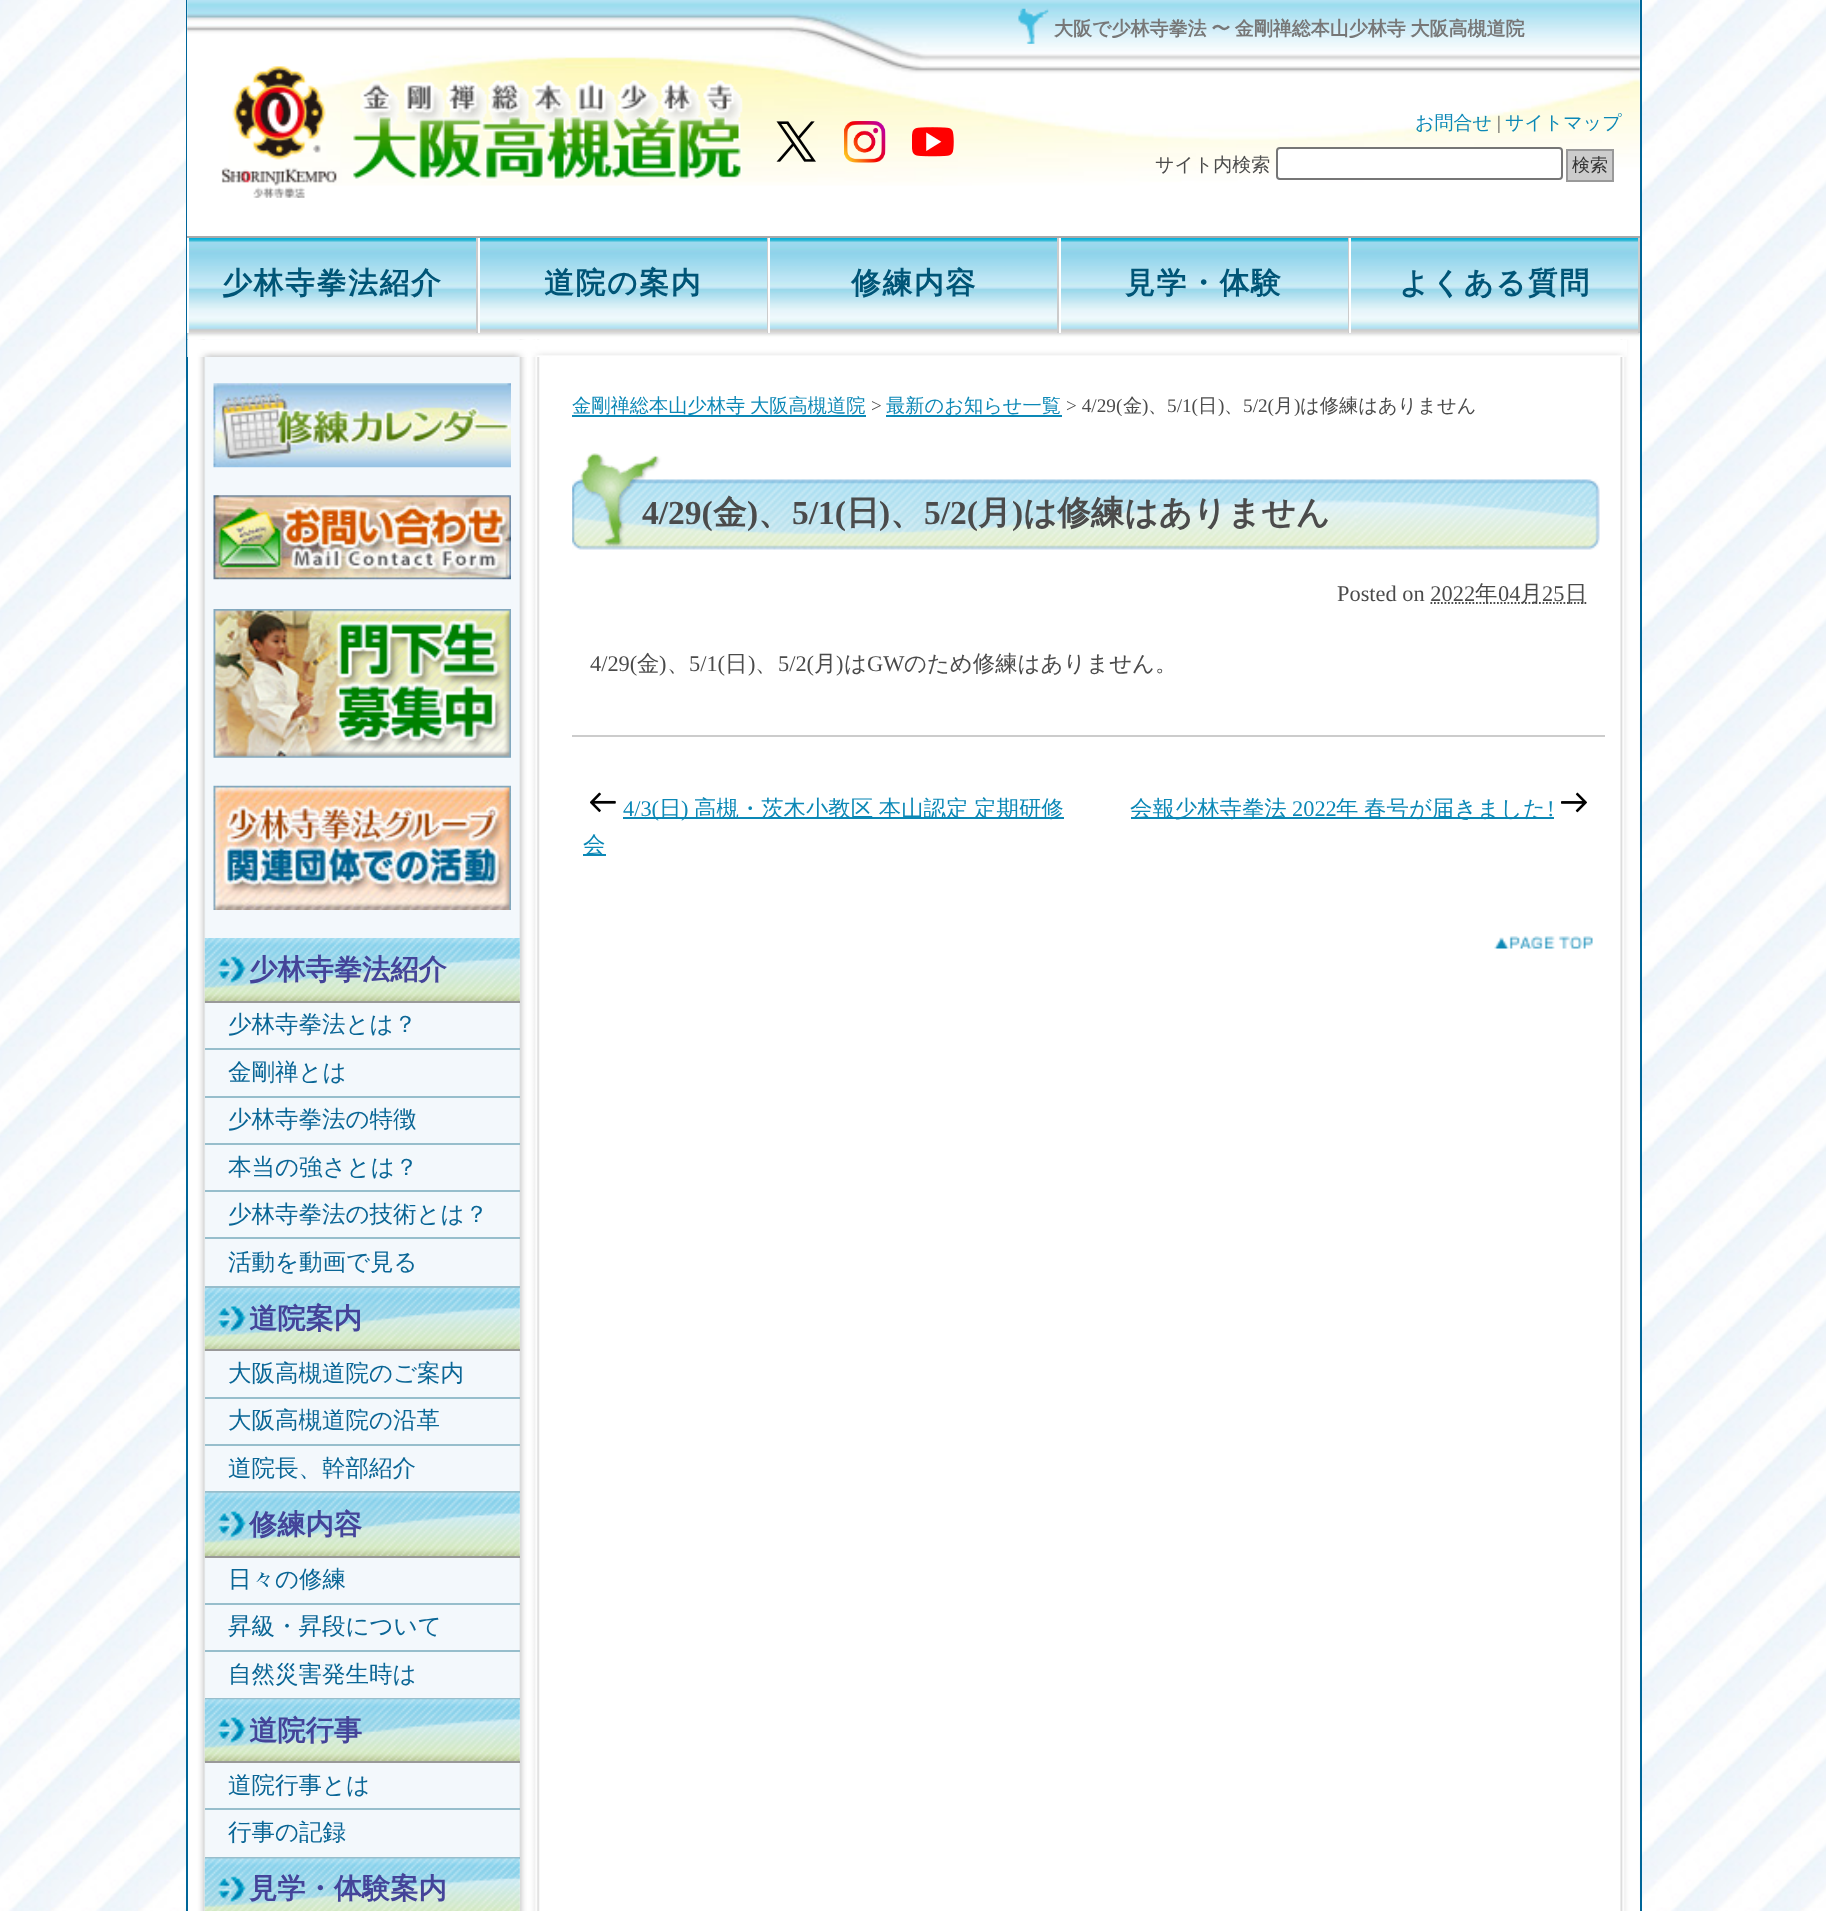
<!DOCTYPE html>
<meta charset="utf-8">
<style>body { margin: 0 } canvas { display: block }</style>
<canvas id="canvas" width="1826" height="1911"></canvas>
<img id="img1" src="images/1.png" hidden>
<img id="img2" src="images/2.png" hidden>
<img id="img3" src="images/3.png" hidden>
<img id="img4" src="images/4.png" hidden>
<img id="img5" src="images/5.png" hidden>
<img id="img6" src="images/6.png" hidden>
<img id="img7" src="images/7.png" hidden>
<img id="img8" src="images/8.png" hidden>
<img id="img9" src="images/10.png" hidden>
<img id="img10" src="images/9.png" hidden>
<img id="img11" src="images/11.png" hidden>
<img id="img12" src="images/12.png" hidden>
<img id="img13" src="images/13.png" hidden>
<img id="img14" src="images/14.png" hidden>
<img id="img15" src="images/15.png" hidden>
<img id="img16" src="images/16.png" hidden>
<img id="img17" src="images/17.png" hidden>
<img id="img18" src="images/18.png" hidden>
<img id="img19" src="images/19.png" hidden>
<img id="img20" src="images/20.png" hidden>
<img id="img21" src="images/21.png" hidden>
<img id="img22" src="images/22.png" hidden>
<img id="img23" src="images/23.png" hidden>
<script>
window.onload = function () {
    const canvas = document.getElementById('canvas');
    const context = canvas.getContext('2d');
    context.miterLimit = 4;
    context.fontKerning = 'normal';

    context.fillStyle = 'rgb(255, 255, 255)';
    context.fillRect(0, 0, 1826, 1911);
    context.drawImage(document.getElementById('img1'), 0, 0, 1826, 1911);
    context.drawImage(document.getElementById('img2'), 188, 333, 1452, 1578);
    context.fillStyle = 'rgb(0, 102, 153)';
    context.fillRect(1640, 0, 2, 1911);
    context.fillRect(186, 0, 2, 1911);
    context.fillStyle = 'rgb(170, 170, 170)';
    context.fillRect(187, 236, 1453, 2);
    context.fillStyle = 'rgb(255, 255, 255)';
    context.fillRect(187, 0, 1453, 236);
    context.drawImage(document.getElementById('img3'), 187, 0, 1453, 186);
    context.drawImage(document.getElementById('img4'), 1018, 8, 31, 36);
    context.drawImage(document.getElementById('img5'), 221, 66, 522, 132);
    context.drawImage(document.getElementById('img6'), 776, 121, 40, 41);
    context.drawImage(document.getElementById('img7'), 844, 121, 42, 42);
    context.drawImage(document.getElementById('img8'), 912, 127, 42, 30);
    context.beginPath();
    context.roundRect(1277, 148, 285, 31, 3);
    context.fill();
    context.strokeStyle = 'rgb(118, 118, 118)';
    context.lineWidth = 2;
    context.stroke();
    context.fillStyle = 'rgb(204, 204, 204)';
    context.beginPath();
    context.rect(1567, 150, 46, 31);
    context.fill();
    context.strokeStyle = 'rgb(153, 153, 153)';
    context.stroke();
    context.drawImage(document.getElementById('img9'), 187, 339, 1440, 18);
    context.drawImage(document.getElementById('img10'), 187, 238, 1453, 102);
    context.fillRect(476, 238, 2, 95);
    context.fillStyle = 'rgb(255, 255, 255)';
    context.fillRect(187, 238, 2, 95);
    context.fillStyle = 'rgb(204, 204, 204)';
    context.fillRect(767, 238, 1, 95);
    context.fillStyle = 'rgb(255, 255, 255)';
    context.fillRect(478, 238, 2, 95);
    context.fillStyle = 'rgb(204, 204, 204)';
    context.fillRect(1057, 238, 2, 95);
    context.fillStyle = 'rgb(255, 255, 255)';
    context.fillRect(768, 238, 2, 95);
    context.fillStyle = 'rgb(204, 204, 204)';
    context.fillRect(1348, 238, 1, 95);
    context.fillStyle = 'rgb(255, 255, 255)';
    context.fillRect(1059, 238, 2, 95);
    context.fillStyle = 'rgb(204, 204, 204)';
    context.fillRect(1638, 238, 2, 95);
    context.fillStyle = 'rgb(255, 255, 255)';
    context.fillRect(1349, 238, 2, 95);
    context.fillStyle = 'rgb(12, 136, 182)';
    context.fillRect(572, 415, 294, 2);
    context.fillRect(886, 415, 176, 2);
    context.drawImage(document.getElementById('img11'), 572, 453, 1028, 97);
    context.beginPath();
    context.moveTo(1430.5, 603);
    context.lineTo(1587, 603);
    context.strokeStyle = 'rgb(75, 75, 75)';
    context.lineWidth = 1.8;
    context.setLineDash([1.75, 1.75]);
    context.stroke();
    context.fillStyle = 'rgb(204, 204, 204)';
    context.fillRect(572, 735, 1033, 2);
    context.drawImage(document.getElementById('img12'), 590, 792, 26, 21);
    context.fillStyle = 'rgb(12, 136, 182)';
    context.fillRect(623, 817, 441, 2);
    context.fillRect(583, 854, 23, 2);
    context.fillRect(1131, 817, 423, 2);
    context.drawImage(document.getElementById('img13'), 1561, 792, 26, 21);
    context.drawImage(document.getElementById('img14'), 1494, 936, 99, 13);
    context.drawImage(document.getElementById('img15'), 213, 383, 298, 85);
    context.drawImage(document.getElementById('img16'), 213, 495, 298, 85);
    context.drawImage(document.getElementById('img17'), 213, 609, 298, 149);
    context.drawImage(document.getElementById('img18'), 213, 785, 298, 125);
    context.drawImage(document.getElementById('img19'), 204, 938, 316, 65);
    context.fillStyle = 'rgb(153, 153, 153)';
    context.fillRect(205, 1001, 315, 2);
    context.fillStyle = 'rgb(151, 190, 204)';
    context.fillRect(205, 1048, 315, 2);
    context.fillRect(205, 1096, 315, 2);
    context.fillRect(205, 1143, 315, 2);
    context.fillRect(205, 1190, 315, 2);
    context.fillRect(205, 1237, 315, 2);
    context.fillRect(205, 1286, 315, 2);
    context.drawImage(document.getElementById('img20'), 204, 1288, 316, 63);
    context.fillStyle = 'rgb(153, 153, 153)';
    context.fillRect(205, 1349, 315, 2);
    context.fillStyle = 'rgb(151, 190, 204)';
    context.fillRect(205, 1397, 315, 2);
    context.fillRect(205, 1444, 315, 2);
    context.fillRect(205, 1491, 315, 2);
    context.drawImage(document.getElementById('img21'), 204, 1492, 316, 66);
    context.fillStyle = 'rgb(153, 153, 153)';
    context.fillRect(205, 1556, 315, 2);
    context.fillStyle = 'rgb(151, 190, 204)';
    context.fillRect(205, 1603, 315, 2);
    context.fillRect(205, 1650, 315, 2);
    context.fillRect(205, 1698, 315, 2);
    context.drawImage(document.getElementById('img22'), 204, 1699, 316, 64);
    context.fillStyle = 'rgb(153, 153, 153)';
    context.fillRect(205, 1761, 315, 2);
    context.fillStyle = 'rgb(151, 190, 204)';
    context.fillRect(205, 1808, 315, 2);
    context.fillRect(205, 1857, 315, 2);
    context.drawImage(document.getElementById('img23'), 204, 1858, 316, 53);
    context.wordSpacing = '-1px';
    context.font = 'bold 19px WenQuanYi Zen Hei';
    context.fillStyle = 'rgb(119, 119, 119)';
    context.fillText('大阪で少林寺拳法 〜 金剛禅総本山少林寺 大阪高槻道院', 1054, 35);
    context.wordSpacing = '0px';
    context.font = '500 19px WenQuanYi Zen Hei';
    context.fillStyle = 'rgb(12, 136, 182)';
    context.fillText('お問合せ', 1415, 129);
    context.font = '19px Liberation Serif';
    context.fillStyle = 'rgb(75, 75, 75)';
    context.fillText('|', 1497, 129);
    context.font = '500 19px WenQuanYi Zen Hei';
    context.fillStyle = 'rgb(12, 136, 182)';
    context.fillText('サイトマップ', 1505, 129);
    context.fillStyle = 'rgb(75, 75, 75)';
    context.fillText('サイト内検索', 1155, 171);
    context.font = '500 18px WenQuanYi Zen Hei';
    context.fillStyle = 'rgb(51, 51, 51)';
    context.fillText('検索', 1572, 171);
    context.letterSpacing = '1.75px';
    context.font = 'bold 29.75px WenQuanYi Zen Hei';
    context.fillStyle = 'rgb(0, 85, 119)';
    context.fillText('少林寺拳法紹介', 222, 293);
    context.fillText('道院の案内', 544, 293);
    context.fillText('修練内容', 851, 293);
    context.fillText('見学・体験', 1125, 293);
    context.fillText('よくある質問', 1399, 293);
    context.letterSpacing = '0px';
    context.wordSpacing = '-1px';
    context.font = '500 19.25px WenQuanYi Zen Hei';
    context.fillStyle = 'rgb(12, 136, 182)';
    context.fillText('金剛禅総本山少林寺 大阪高槻道院', 572, 412);
    context.wordSpacing = '0px';
    context.font = '19.25px Liberation Serif';
    context.fillStyle = 'rgb(75, 75, 75)';
    context.fillText('>', 871, 412);
    context.font = '500 19.25px WenQuanYi Zen Hei';
    context.fillStyle = 'rgb(12, 136, 182)';
    context.fillText('最新のお知らせ一覧', 886, 412);
    context.font = '19.25px Liberation Serif';
    context.fillStyle = 'rgb(75, 75, 75)';
    context.fillText('> 4/29(', 1066, 412);
    context.font = '500 19.25px WenQuanYi Zen Hei';
    context.fillText('金', 1123, 412);
    context.font = '19.25px Liberation Serif';
    context.fillText(')', 1142, 412);
    context.fillText('5/1(', 1167, 412);
    context.font = '500 19.25px WenQuanYi Zen Hei';
    context.fillText('日', 1198, 412);
    context.font = '19.25px Liberation Serif';
    context.fillText(')', 1218, 412);
    context.fillText('5/2(', 1243, 412);
    context.font = '500 19.25px WenQuanYi Zen Hei';
    context.fillText('月', 1274, 412);
    context.font = '19.25px Liberation Serif';
    context.fillText(')', 1294, 412);
    context.font = '500 19.25px WenQuanYi Zen Hei';
    context.fillText('は修練はありません', 1300, 412);
    context.fillText('、', 1148, 412);
    context.fillText('、', 1224, 412);
    context.font = 'bold 33.5px Liberation Serif';
    context.fillText('4/29(', 642, 524);
    context.font = 'bold 33.5px WenQuanYi Zen Hei';
    context.fillText('金', 713, 524);
    context.font = 'bold 33.5px Liberation Serif';
    context.fillText(')', 747, 524);
    context.font = 'bold 33.5px WenQuanYi Zen Hei';
    context.fillText('、', 758, 524);
    context.font = 'bold 33.5px Liberation Serif';
    context.fillText('5/1(', 792, 524);
    context.font = 'bold 33.5px WenQuanYi Zen Hei';
    context.fillText('日', 846, 524);
    context.font = 'bold 33.5px Liberation Serif';
    context.fillText(')', 879, 524);
    context.font = 'bold 33.5px WenQuanYi Zen Hei';
    context.fillText('、', 890, 524);
    context.font = 'bold 33.5px Liberation Serif';
    context.fillText('5/2(', 924, 524);
    context.font = 'bold 33.5px WenQuanYi Zen Hei';
    context.fillText('月', 978, 524);
    context.font = 'bold 33.5px Liberation Serif';
    context.fillText(')', 1012, 524);
    context.font = 'bold 33.5px WenQuanYi Zen Hei';
    context.fillText('は修練はありません', 1023, 524);
    context.font = '22.4px Liberation Serif';
    context.fillText('Posted on 2022', 1337, 601);
    context.font = '500 22.4px WenQuanYi Zen Hei';
    context.fillText('年', 1475, 601);
    context.font = '22.4px Liberation Serif';
    context.fillText('04', 1498, 601);
    context.font = '500 22.4px WenQuanYi Zen Hei';
    context.fillText('月', 1520, 601);
    context.font = '22.4px Liberation Serif';
    context.fillText('25', 1542, 601);
    context.font = '500 22.4px WenQuanYi Zen Hei';
    context.fillText('日', 1565, 601);
    context.font = '22.4px Liberation Serif';
    context.fillText('4/29(', 590, 671);
    context.font = '500 22.4px WenQuanYi Zen Hei';
    context.fillText('金', 637, 671);
    context.font = '22.4px Liberation Serif';
    context.fillText(')', 659, 671);
    context.font = '500 22.4px WenQuanYi Zen Hei';
    context.fillText('、', 667, 671);
    context.font = '22.4px Liberation Serif';
    context.fillText('5/1(', 689, 671);
    context.font = '500 22.4px WenQuanYi Zen Hei';
    context.fillText('日', 725, 671);
    context.font = '22.4px Liberation Serif';
    context.fillText(')', 748, 671);
    context.font = '500 22.4px WenQuanYi Zen Hei';
    context.fillText('、', 755, 671);
    context.font = '22.4px Liberation Serif';
    context.fillText('5/2(', 778, 671);
    context.font = '500 22.4px WenQuanYi Zen Hei';
    context.fillText('月', 814, 671);
    context.font = '22.4px Liberation Serif';
    context.fillText(')', 836, 671);
    context.font = '500 22.4px WenQuanYi Zen Hei';
    context.fillText('は', 844, 671);
    context.font = '22.4px Liberation Serif';
    context.fillText('GW', 867, 671);
    context.font = '500 22.4px WenQuanYi Zen Hei';
    context.fillText('のため修練はありません。', 904, 671);
    context.font = '22.4px Liberation Serif';
    context.fillStyle = 'rgb(12, 136, 182)';
    context.fillText('4/3(', 623, 816);
    context.font = '500 22.4px WenQuanYi Zen Hei';
    context.fillText('日', 659, 816);
    context.font = '22.4px Liberation Serif';
    context.fillText(')', 681, 816);
    context.wordSpacing = '-1px';
    context.font = '500 22.4px WenQuanYi Zen Hei';
    context.fillText('高槻・茨木小教区 本山認定 定期研修', 694, 816);
    context.wordSpacing = '0px';
    context.fillText('会', 583, 852);
    context.fillText('会報少林寺拳法', 1130, 816);
    context.font = '22.4px Liberation Serif';
    context.fillText('2022', 1292, 816);
    context.wordSpacing = '-1px';
    context.font = '500 22.4px WenQuanYi Zen Hei';
    context.fillText('年 春号が届きました', 1336, 816);
    context.wordSpacing = '0px';
    context.font = '22.4px Liberation Serif';
    context.fillText('!', 1547, 816);
    context.font = 'bold 28.25px WenQuanYi Zen Hei';
    context.fillStyle = 'rgb(68, 68, 153)';
    context.fillText('少林寺拳法紹介', 249, 979);
    context.font = '500 23.5px WenQuanYi Zen Hei';
    context.fillStyle = 'rgb(10, 102, 150)';
    context.fillText('少林寺拳法とは？', 228, 1032);
    context.fillText('金剛禅とは', 228, 1080);
    context.fillText('少林寺拳法の特徴', 228, 1127);
    context.fillText('本当の強さとは？', 228, 1175);
    context.fillText('少林寺拳法の技術とは？', 228, 1222);
    context.fillText('活動を動画で見る', 228, 1270);
    context.font = 'bold 28.25px WenQuanYi Zen Hei';
    context.fillStyle = 'rgb(68, 68, 153)';
    context.fillText('道院案内', 249, 1328);
    context.font = '500 23.5px WenQuanYi Zen Hei';
    context.fillStyle = 'rgb(10, 102, 150)';
    context.fillText('大阪高槻道院のご案内', 228, 1381);
    context.fillText('大阪高槻道院の沿革', 228, 1428);
    context.fillText('道院長、幹部紹介', 228, 1476);
    context.font = 'bold 28.25px WenQuanYi Zen Hei';
    context.fillStyle = 'rgb(68, 68, 153)';
    context.fillText('修練内容', 249, 1534);
    context.font = '500 23.5px WenQuanYi Zen Hei';
    context.fillStyle = 'rgb(10, 102, 150)';
    context.fillText('日々の修練', 228, 1587);
    context.fillText('昇級・昇段について', 228, 1634);
    context.fillText('自然災害発生時は', 228, 1682);
    context.font = 'bold 28.25px WenQuanYi Zen Hei';
    context.fillStyle = 'rgb(68, 68, 153)';
    context.fillText('道院行事', 249, 1740);
    context.font = '500 23.5px WenQuanYi Zen Hei';
    context.fillStyle = 'rgb(10, 102, 150)';
    context.fillText('道院行事とは', 228, 1793);
    context.fillText('行事の記録', 228, 1840);
    context.font = 'bold 28.25px WenQuanYi Zen Hei';
    context.fillStyle = 'rgb(68, 68, 153)';
    context.fillText('見学・体験案内', 249, 1898);
};
</script>
